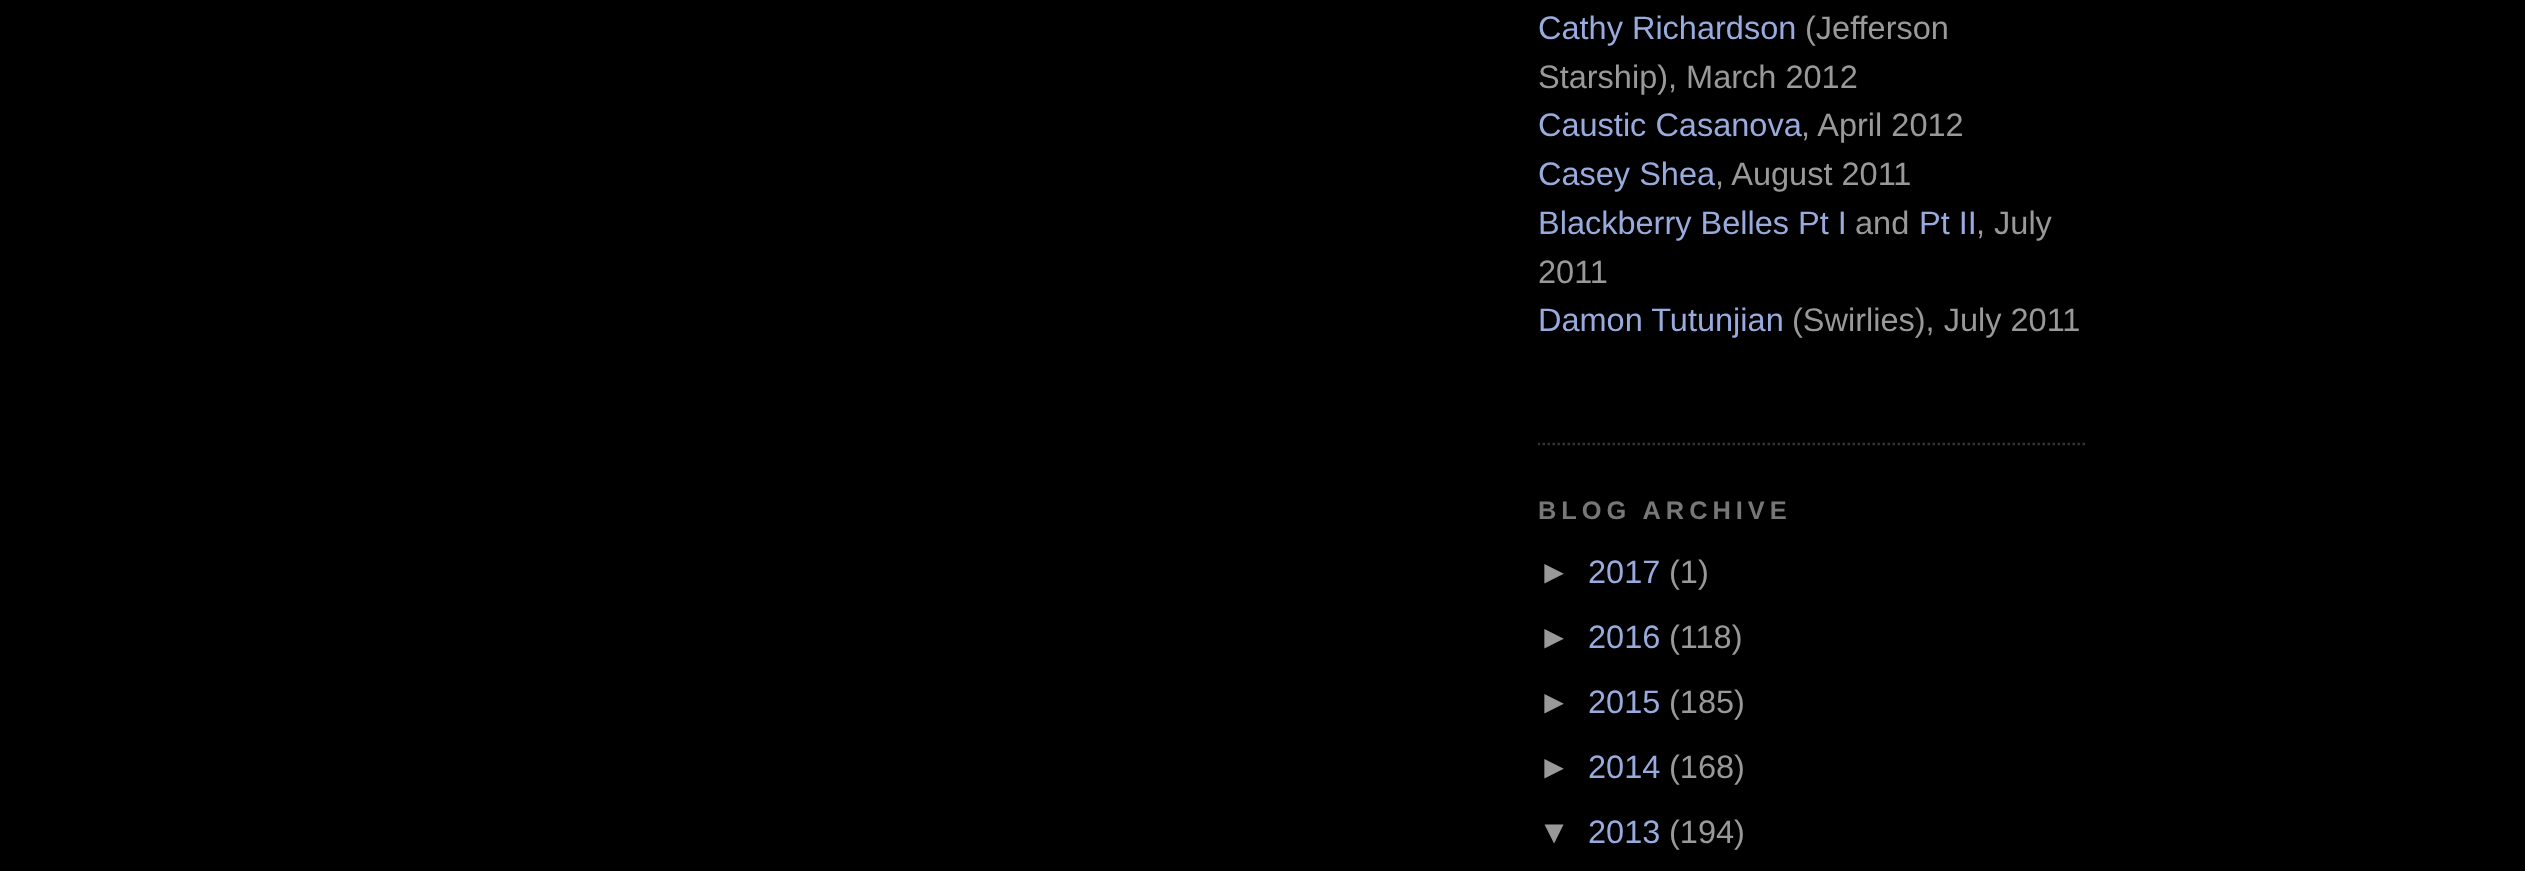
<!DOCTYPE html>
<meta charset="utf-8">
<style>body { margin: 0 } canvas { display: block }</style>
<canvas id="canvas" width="2525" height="871"></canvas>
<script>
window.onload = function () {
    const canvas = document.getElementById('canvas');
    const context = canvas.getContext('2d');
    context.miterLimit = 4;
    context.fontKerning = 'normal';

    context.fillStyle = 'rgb(0, 0, 0)';
    context.fillRect(0, 0, 2525, 871);
    context.save();
    context.beginPath();
    context.rect(1538, 0, 550, 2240);
    context.clip();
    context.beginPath();
    context.moveTo(1537.5, 444);
    context.lineTo(2087.5, 444);
    context.strokeStyle = 'rgb(51, 51, 51)';
    context.lineWidth = 2.5;
    context.setLineDash([2.5, 2.5]);
    context.stroke();
    context.restore();
    context.font = '32.5px Liberation Sans';
    context.fillStyle = 'rgb(153, 170, 221)';
    context.fillText('Cathy Richardson', 1538, 39);
    context.fillStyle = 'rgb(153, 153, 153)';
    context.fillText('(Jefferson', 1805, 39);
    context.fillText('Starship), March 2012', 1538, 88);
    context.fillStyle = 'rgb(153, 170, 221)';
    context.fillText('Caustic Casanova', 1538, 136);
    context.fillStyle = 'rgb(153, 153, 153)';
    context.fillText(', April 2012', 1801, 136);
    context.fillStyle = 'rgb(153, 170, 221)';
    context.fillText('Casey Shea', 1538, 185);
    context.fillStyle = 'rgb(153, 153, 153)';
    context.fillText(', August 2011', 1715, 185);
    context.fillStyle = 'rgb(153, 170, 221)';
    context.fillText('Blackberry Belles Pt I', 1538, 234);
    context.fillStyle = 'rgb(153, 153, 153)';
    context.fillText('and', 1855, 234);
    context.fillStyle = 'rgb(153, 170, 221)';
    context.fillText('Pt II', 1919, 234);
    context.fillStyle = 'rgb(153, 153, 153)';
    context.fillText(', July', 1976, 234);
    context.fillText('2011', 1538, 283);
    context.fillStyle = 'rgb(153, 170, 221)';
    context.fillText('Damon Tutunjian', 1538, 331);
    context.fillStyle = 'rgb(153, 153, 153)';
    context.fillText('(Swirlies), July 2011', 1792, 331);
    context.letterSpacing = '5px';
    context.font = 'bold 25.4px Liberation Sans';
    context.fillStyle = 'rgb(119, 119, 119)';
    context.fillText('BLOG ARCHIVE', 1538, 519);
    context.letterSpacing = '0px';
    context.font = '32.5px Liberation Sans';
    context.fillStyle = 'rgb(153, 153, 153)';
    context.fillText('►', 1538, 583);
    context.fillStyle = 'rgb(153, 170, 221)';
    context.fillText('2017', 1588, 583);
    context.fillStyle = 'rgb(153, 153, 153)';
    context.fillText('(1)', 1669, 583);
    context.fillText('►', 1538, 648);
    context.fillStyle = 'rgb(153, 170, 221)';
    context.fillText('2016', 1588, 648);
    context.fillStyle = 'rgb(153, 153, 153)';
    context.fillText('(118)', 1669, 648);
    context.fillText('►', 1538, 713);
    context.fillStyle = 'rgb(153, 170, 221)';
    context.fillText('2015', 1588, 713);
    context.fillStyle = 'rgb(153, 153, 153)';
    context.fillText('(185)', 1669, 713);
    context.fillText('►', 1538, 778);
    context.fillStyle = 'rgb(153, 170, 221)';
    context.fillText('2014', 1588, 778);
    context.fillStyle = 'rgb(153, 153, 153)';
    context.fillText('(168)', 1669, 778);
    context.fillText('▼', 1538, 843);
    context.fillStyle = 'rgb(153, 170, 221)';
    context.fillText('2013', 1588, 843);
    context.fillStyle = 'rgb(153, 153, 153)';
    context.fillText('(194)', 1669, 843);
};
</script>
